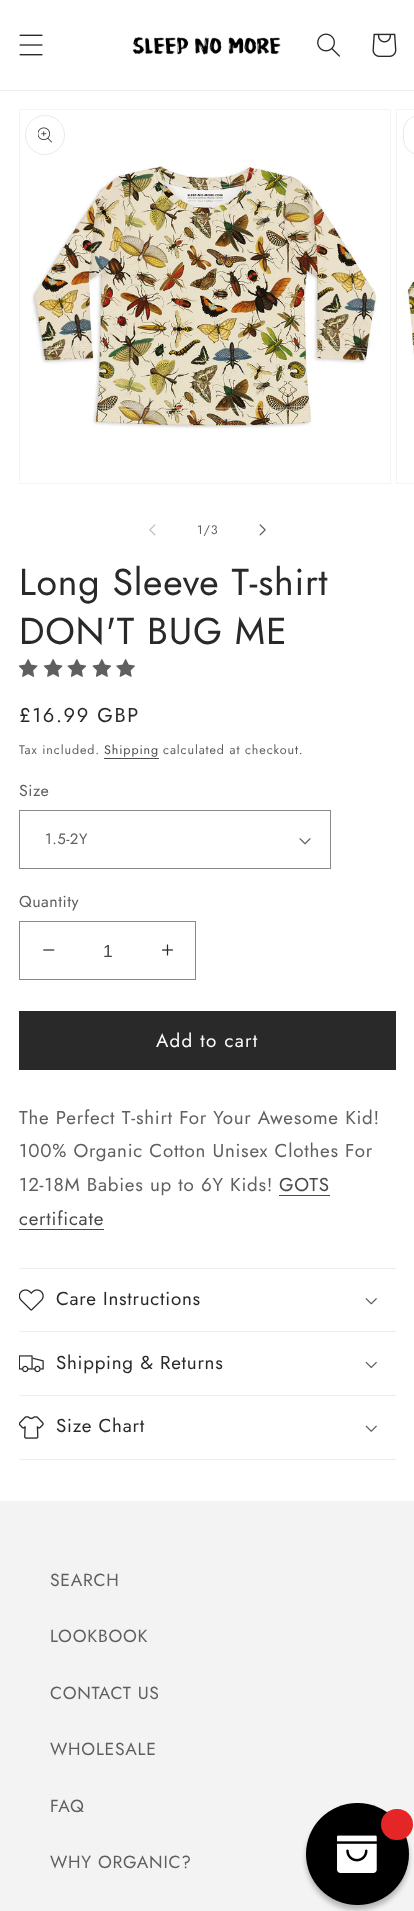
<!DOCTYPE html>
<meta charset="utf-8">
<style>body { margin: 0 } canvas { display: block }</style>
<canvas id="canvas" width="414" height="1911"></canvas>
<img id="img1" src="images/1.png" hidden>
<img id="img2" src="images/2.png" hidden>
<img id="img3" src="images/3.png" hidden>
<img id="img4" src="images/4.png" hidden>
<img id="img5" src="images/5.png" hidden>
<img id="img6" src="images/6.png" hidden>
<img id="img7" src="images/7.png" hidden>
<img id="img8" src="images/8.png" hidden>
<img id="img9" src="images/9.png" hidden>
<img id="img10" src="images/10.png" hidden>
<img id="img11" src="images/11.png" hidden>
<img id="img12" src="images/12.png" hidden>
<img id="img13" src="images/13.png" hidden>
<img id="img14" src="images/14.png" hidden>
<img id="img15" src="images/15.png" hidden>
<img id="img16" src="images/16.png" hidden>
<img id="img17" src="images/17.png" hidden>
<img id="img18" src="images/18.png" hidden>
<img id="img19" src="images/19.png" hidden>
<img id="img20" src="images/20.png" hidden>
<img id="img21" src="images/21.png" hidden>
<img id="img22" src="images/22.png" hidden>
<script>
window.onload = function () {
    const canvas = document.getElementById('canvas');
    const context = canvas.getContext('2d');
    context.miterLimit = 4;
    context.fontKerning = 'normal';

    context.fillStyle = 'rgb(255, 255, 255)';
    context.fillRect(0, 0, 414, 1911);
    context.fillStyle = 'rgb(238, 238, 238)';
    context.fillRect(0, 90, 414, 1);
    context.drawImage(document.getElementById('img1'), 19, 34, 24, 22);
    context.drawImage(document.getElementById('img2'), 132, 37, 149, 18);
    context.drawImage(document.getElementById('img3'), 317, 33, 23, 24);
    context.drawImage(document.getElementById('img4'), 372, 33, 25, 24);
    context.strokeStyle = 'rgb(244, 244, 244)';
    context.strokeRect(19.5, 109.5, 371, 374);
    context.drawImage(document.getElementById('img5'), 31, 165, 348, 264);
    context.beginPath();
    context.arc(45, 135, 19.5, 0, 2 * Math.PI);
    context.strokeStyle = 'rgb(234, 234, 234)';
    context.stroke();
    context.drawImage(document.getElementById('img6'), 38, 127, 14, 16);
    context.strokeStyle = 'rgb(244, 244, 244)';
    context.strokeRect(396.5, 109.5, 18, 374);
    context.drawImage(document.getElementById('img7'), 406, 279, 8, 79);
    context.beginPath();
    context.roundRect(403.5, 115.5, 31, 39, 19.5);
    context.strokeStyle = 'rgb(234, 234, 234)';
    context.stroke();
    context.drawImage(document.getElementById('img8'), 149, 524, 7, 12);
    context.drawImage(document.getElementById('img9'), 259, 524, 7, 12);
    context.drawImage(document.getElementById('img10'), 18, 659, 20, 18);
    context.drawImage(document.getElementById('img10'), 43, 659, 20, 18);
    context.drawImage(document.getElementById('img11'), 67, 659, 20, 18);
    context.drawImage(document.getElementById('img11'), 92, 659, 20, 18);
    context.drawImage(document.getElementById('img12'), 116, 659, 19, 18);
    context.fillStyle = 'rgb(73, 73, 73)';
    context.fillRect(104, 758, 55, 1);
    context.drawImage(document.getElementById('img13'), 299, 838, 12, 7);
    context.strokeStyle = 'rgb(137, 137, 137)';
    context.strokeRect(19.5, 810.5, 311, 58);
    context.drawImage(document.getElementById('img14'), 43, 949, 12, 2);
    context.drawImage(document.getElementById('img15'), 162, 944, 12, 12);
    context.strokeRect(19.5, 921.5, 176, 58);
    context.fillStyle = 'rgb(41, 41, 41)';
    context.fillRect(19, 1011, 377, 59);
    context.fillStyle = 'rgb(73, 73, 73)';
    context.fillRect(279, 1195, 51, 1);
    context.fillRect(19, 1229, 85, 1);
    context.fillStyle = 'rgb(238, 238, 238)';
    context.fillRect(19, 1268, 377, 1);
    context.fillRect(19, 1331, 377, 1);
    context.drawImage(document.getElementById('img16'), 19, 1289, 25, 22);
    context.drawImage(document.getElementById('img17'), 365, 1298, 12, 7);
    context.fillRect(19, 1395, 377, 1);
    context.drawImage(document.getElementById('img18'), 19, 1355, 25, 18);
    context.drawImage(document.getElementById('img19'), 365, 1361, 12, 8);
    context.fillRect(19, 1459, 377, 1);
    context.drawImage(document.getElementById('img20'), 19, 1416, 25, 23);
    context.drawImage(document.getElementById('img21'), 365, 1425, 12, 7);
    context.fillStyle = 'rgb(243, 243, 243)';
    context.fillRect(0, 1501, 414, 410);
    context.fillStyle = 'rgba(0, 0, 0, 0.25)';
    context.filter = 'blur(2.5px)';
    context.beginPath();
    context.roundRect(306, 1808, 103, 102, 51);
    context.fill();
    context.filter = 'none';
    context.fillStyle = 'rgb(0, 0, 0)';
    context.beginPath();
    context.roundRect(306, 1803, 103, 102, 51);
    context.fill();
    context.fillStyle = 'rgb(228, 38, 38)';
    context.beginPath();
    context.roundRect(381, 1809, 32, 31, 15.5);
    context.fill();
    context.drawImage(document.getElementById('img22'), 337, 1835, 40, 38);
    context.letterSpacing = '0.9px';
    context.font = '12.5px Jost';
    context.fillStyle = 'rgb(95, 95, 95)';
    context.fillText('1/3', 197, 534);
    context.letterSpacing = '0.75px';
    context.font = '37.5px Jost';
    context.fillStyle = 'rgb(41, 41, 41)';
    context.fillText('Long Sleeve T-shirt', 19, 595);
    context.fillText('DON\'T BUG ME', 19, 644);
    context.letterSpacing = '1.6px';
    context.font = '20px Jost';
    context.fillText('£16.99 GBP', 19, 722);
    context.letterSpacing = '0.9px';
    context.font = '12.5px Jost';
    context.fillStyle = 'rgb(95, 95, 95)';
    context.fillText('Tax included.', 19, 754);
    context.fillStyle = 'rgb(73, 73, 73)';
    context.fillText('Shipping', 104, 754);
    context.fillStyle = 'rgb(95, 95, 95)';
    context.fillText('calculated at checkout.', 163, 754);
    context.letterSpacing = '0.5px';
    context.font = '16px Jost';
    context.fillText('Size', 19, 796);
    context.font = '15px Jost';
    context.fillText('1.5-2Y', 45, 844);
    context.font = '16px Jost';
    context.fillText('Quantity', 19, 907);
    context.letterSpacing = '0px';
    context.font = '17.5px Liberation Sans';
    context.fillStyle = 'rgb(73, 73, 73)';
    context.fillText('1', 103, 957);
    context.letterSpacing = '1.25px';
    context.font = '18.75px Jost';
    context.fillStyle = 'rgb(255, 255, 255)';
    context.fillText('Add to cart', 156, 1047);
    context.letterSpacing = '0.75px';
    context.fillStyle = 'rgb(95, 95, 95)';
    context.fillText('The Perfect T-shirt For Your Awesome Kid!', 19, 1124);
    context.fillText('100% Organic Cotton Unisex Clothes For', 19, 1157);
    context.fillText('12-18M Babies up to 6Y Kids!', 19, 1191);
    context.fillStyle = 'rgb(73, 73, 73)';
    context.fillText('GOTS', 279, 1191);
    context.fillText('certificate', 19, 1225);
    context.fillStyle = 'rgb(41, 41, 41)';
    context.fillText('Care Instructions', 56, 1305);
    context.fillText('Shipping & Returns', 56, 1369);
    context.fillText('Size Chart', 56, 1432);
    context.font = '17.5px Jost';
    context.fillStyle = 'rgb(95, 95, 95)';
    context.fillText('SEARCH', 50, 1586);
    context.fillText('LOOKBOOK', 50, 1642);
    context.fillText('CONTACT US', 50, 1699);
    context.fillText('WHOLESALE', 50, 1755);
    context.fillText('FAQ', 50, 1812);
    context.fillText('WHY ORGANIC?', 50, 1868);
};
</script>
